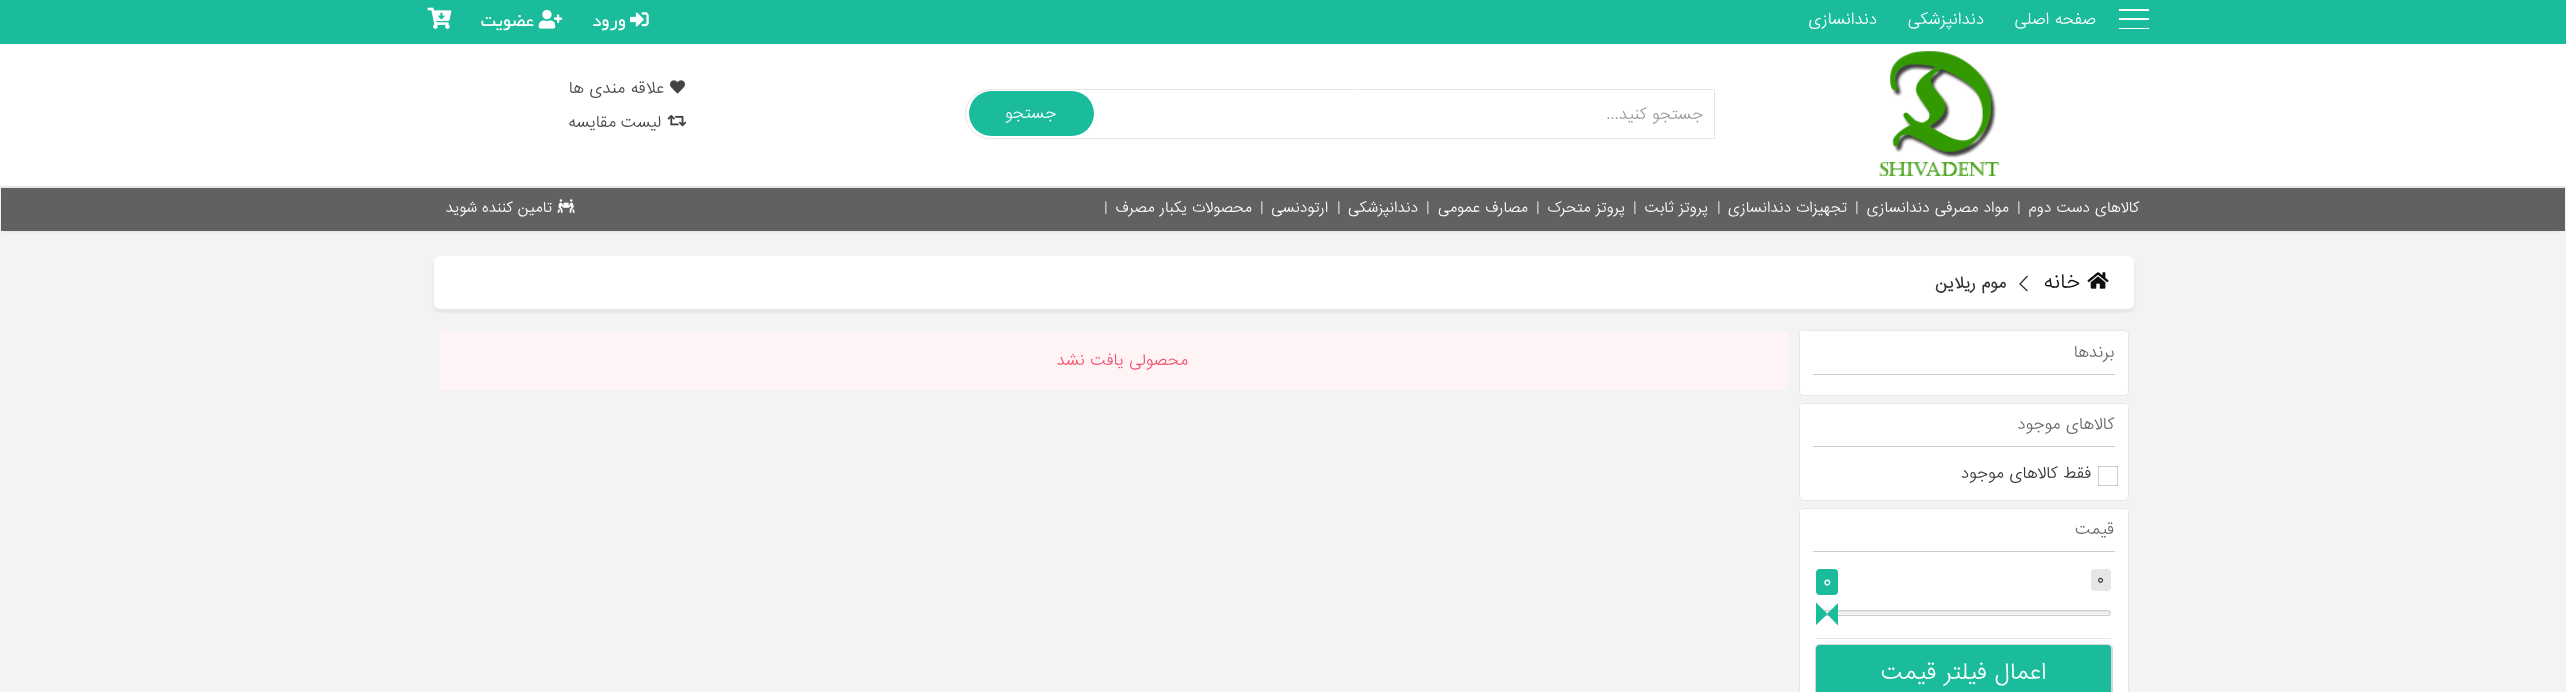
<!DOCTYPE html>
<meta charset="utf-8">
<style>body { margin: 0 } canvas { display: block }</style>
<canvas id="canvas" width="2566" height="692"></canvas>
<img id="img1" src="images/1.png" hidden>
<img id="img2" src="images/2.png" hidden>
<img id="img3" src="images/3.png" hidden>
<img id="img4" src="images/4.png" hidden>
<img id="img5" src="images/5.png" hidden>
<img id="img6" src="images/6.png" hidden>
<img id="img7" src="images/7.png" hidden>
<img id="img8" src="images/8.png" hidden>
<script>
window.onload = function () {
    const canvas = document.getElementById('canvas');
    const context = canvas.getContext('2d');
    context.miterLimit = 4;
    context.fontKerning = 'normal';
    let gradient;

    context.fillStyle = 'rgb(243, 243, 243)';
    context.fillRect(0, 0, 2566, 692);
    context.fillStyle = 'rgba(0, 0, 0, 0.05)';
    context.filter = 'blur(1px)';
    context.beginPath();
    context.rect(-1, 39, 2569, 151);
    context.fill();
    context.filter = 'none';
    context.fillStyle = 'rgb(26, 188, 156)';
    context.fillRect(0, 0, 2566, 44);
    context.fillStyle = 'rgb(255, 255, 255)';
    context.fillRect(2119, 9, 30, 2);
    context.fillRect(2119, 18, 30, 2);
    context.fillRect(2119, 28, 30, 1);
    context.drawImage(document.getElementById('img1'), 630, 12, 19, 15);
    context.drawImage(document.getElementById('img2'), 538, 9, 25, 20);
    context.drawImage(document.getElementById('img3'), 427, 7, 25, 22);
    context.fillRect(0, 44, 2566, 142);
    context.drawImage(document.getElementById('img4'), 1879, 51, 121, 125);
    context.beginPath();
    context.roundRect(965.5, 89.5, 749, 49, [24.5, 0, 0, 24.5]);
    context.strokeStyle = 'rgb(229, 229, 229)';
    context.stroke();
    context.fillStyle = 'rgb(26, 188, 156)';
    context.beginPath();
    context.roundRect(969, 91, 125, 45, 22.5);
    context.fill();
    context.drawImage(document.getElementById('img5'), 670, 80, 15, 14);
    context.drawImage(document.getElementById('img6'), 667, 115, 20, 12);
    context.fillStyle = 'rgb(199, 199, 199)';
    context.filter = 'blur(2.5px)';
    context.beginPath();
    context.rect(5, 194, 2556, 36);
    context.fill();
    context.filter = 'none';
    context.fillStyle = 'rgb(97, 97, 97)';
    context.fillRect(1, 188, 2564, 43);
    context.drawImage(document.getElementById('img7'), 557, 199, 18, 14);
    context.fillStyle = 'rgba(0, 0, 0, 0.05)';
    context.filter = 'blur(1px)';
    context.beginPath();
    context.roundRect(433, 258, 1702, 55, 8);
    context.fill();
    context.filter = 'none';
    context.fillStyle = 'rgb(255, 255, 255)';
    context.beginPath();
    context.roundRect(434, 256, 1700, 53, 6);
    context.fill();
    context.drawImage(document.getElementById('img8'), 2087, 272, 22, 17);
    context.beginPath();
    context.moveTo(2027.5, 291);
    context.lineTo(2020, 284);
    context.lineTo(2027.5, 276);
    context.strokeStyle = 'rgb(51, 51, 51)';
    context.lineWidth = 1.3;
    context.stroke();
    context.fillRect(1800, 331, 3, 3);
    context.fillStyle = 'rgba(0, 0, 0, 0.05)';
    context.filter = 'blur(0.5px)';
    context.beginPath();
    context.roundRect(1799, 330, 330, 66, 5);
    context.fill();
    context.filter = 'none';
    context.fillStyle = 'rgb(255, 255, 255)';
    context.beginPath();
    context.roundRect(1800, 331, 328, 64, 4);
    context.fill();
    context.beginPath();
    context.roundRect(1800, 331, 328, 44, [4, 4, 0, 0]);
    context.fill();
    context.fillStyle = 'rgb(204, 204, 204)';
    context.fillRect(1813, 374, 302, 1);
    context.fillStyle = 'rgba(0, 0, 0, 0.05)';
    context.filter = 'blur(0.5px)';
    context.beginPath();
    context.roundRect(1799, 403, 330, 98, 5);
    context.fill();
    context.filter = 'none';
    context.fillStyle = 'rgb(255, 255, 255)';
    context.beginPath();
    context.roundRect(1800, 404, 328, 96, 4);
    context.fill();
    context.beginPath();
    context.roundRect(1800, 404, 328, 44, [4, 4, 0, 0]);
    context.fill();
    context.fillStyle = 'rgb(204, 204, 204)';
    context.fillRect(1813, 446, 302, 1);
    context.strokeStyle = 'rgb(204, 204, 204)';
    context.lineWidth = 1;
    context.strokeRect(2098.5, 466.5, 19, 19);
    context.fillStyle = 'rgba(0, 0, 0, 0.05)';
    context.filter = 'blur(0.5px)';
    context.beginPath();
    context.roundRect(1799, 508, 330, 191, 5);
    context.fill();
    context.filter = 'none';
    context.fillStyle = 'rgb(255, 255, 255)';
    context.beginPath();
    context.roundRect(1800, 509, 328, 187, 4);
    context.fill();
    context.beginPath();
    context.roundRect(1800, 509, 328, 44, [4, 4, 0, 0]);
    context.fill();
    context.fillStyle = 'rgb(204, 204, 204)';
    context.fillRect(1813, 551, 302, 1);
    context.fillStyle = 'rgb(230, 230, 230)';
    context.beginPath();
    context.roundRect(2091, 569, 20, 22, 4);
    context.fill();
    context.fillStyle = 'rgb(26, 188, 156)';
    context.beginPath();
    context.roundRect(1816, 569, 22, 26, 4);
    context.fill();
    context.save();
    context.beginPath();
    context.roundRect(1816, 610, 295, 6, 3);
    context.clip();
    gradient = context.createLinearGradient(1964, 609, 1964, 617);
    gradient.addColorStop(0, 'rgb(221, 221, 221)');
    gradient.addColorStop(1, 'rgb(255, 255, 255)');
    context.fillStyle = gradient;
    context.fillRect(1816, 611, 295, 4);
    context.restore();
    context.beginPath();
    context.roundRect(1816.5, 610.5, 294, 5, 2.5);
    context.stroke();
    context.beginPath();
    context.moveTo(1816, 625);
    context.lineTo(1816, 602.5);
    context.lineTo(1827.5, 614);
    context.closePath();
    context.fill();
    context.beginPath();
    context.moveTo(1838, 603);
    context.lineTo(1838, 625.5);
    context.lineTo(1827, 614);
    context.closePath();
    context.fill();
    context.fillStyle = 'rgb(229, 229, 229)';
    context.fillRect(1816, 638, 295, 1);
    context.fillStyle = 'rgb(214, 214, 214)';
    context.filter = 'blur(0.5px)';
    context.beginPath();
    context.roundRect(1815, 644, 298, 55, 5);
    context.fill();
    context.filter = 'none';
    context.fillStyle = 'rgb(26, 188, 156)';
    context.beginPath();
    context.roundRect(1816, 645, 295, 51, 4);
    context.fill();
    context.fillStyle = 'rgb(254, 244, 246)';
    context.fillRect(440, 331, 1348, 59);
    context.direction = 'rtl';
    context.font = '300 15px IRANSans';
    context.fillStyle = 'rgb(255, 255, 255)';
    context.fillText('صفحه', 2096, 24);
    context.fillText('اصلی', 2049, 24);
    context.fillText('دندانپزشکی', 1984, 24);
    context.fillText('دندانسازی', 1877, 24);
    context.font = '19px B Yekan';
    context.fillText('ورود', 626, 26);
    context.fillText('عضویت', 534, 26);
    context.font = '300 15px IRANSans';
    context.fillStyle = 'rgb(153, 153, 153)';
    context.fillText('جستجو کنید...', 1703, 119);
    context.fillStyle = 'rgb(255, 255, 255)';
    context.fillText('جستجو', 1056, 118);
    context.fillStyle = 'rgb(68, 68, 68)';
    context.fillText('علاقه', 664, 93);
    context.fillText('مندی ها', 625, 93);
    context.fillText('لیست', 661, 127);
    context.fillText('مقایسه', 616, 127);
    context.font = '300 13.75px IRANSans';
    context.fillStyle = 'rgb(255, 255, 255)';
    context.fillText('کالاهای دست دوم', 2139, 212);
    context.direction = 'ltr';
    context.font = '300 15px IRANSans';
    context.fillStyle = 'rgb(221, 221, 221)';
    context.fillText('|', 2017, 212);
    context.direction = 'rtl';
    context.font = '300 13.75px IRANSans';
    context.fillStyle = 'rgb(255, 255, 255)';
    context.fillText('مواد مصرفی دندانسازی', 2009, 212);
    context.direction = 'ltr';
    context.font = '300 15px IRANSans';
    context.fillStyle = 'rgb(221, 221, 221)';
    context.fillText('|', 1855, 212);
    context.direction = 'rtl';
    context.font = '300 13.75px IRANSans';
    context.fillStyle = 'rgb(255, 255, 255)';
    context.fillText('تجهیزات دندانسازی', 1847, 212);
    context.direction = 'ltr';
    context.font = '300 15px IRANSans';
    context.fillStyle = 'rgb(221, 221, 221)';
    context.fillText('|', 1717, 212);
    context.direction = 'rtl';
    context.font = '300 13.75px IRANSans';
    context.fillStyle = 'rgb(255, 255, 255)';
    context.fillText('پروتز ثابت', 1708, 212);
    context.direction = 'ltr';
    context.font = '300 15px IRANSans';
    context.fillStyle = 'rgb(221, 221, 221)';
    context.fillText('|', 1633, 212);
    context.direction = 'rtl';
    context.font = '300 13.75px IRANSans';
    context.fillStyle = 'rgb(255, 255, 255)';
    context.fillText('پروتز متحرک', 1625, 212);
    context.direction = 'ltr';
    context.font = '300 15px IRANSans';
    context.fillStyle = 'rgb(221, 221, 221)';
    context.fillText('|', 1536, 212);
    context.direction = 'rtl';
    context.font = '300 13.75px IRANSans';
    context.fillStyle = 'rgb(255, 255, 255)';
    context.fillText('مصارف عمومی', 1528, 212);
    context.direction = 'ltr';
    context.font = '300 15px IRANSans';
    context.fillStyle = 'rgb(221, 221, 221)';
    context.fillText('|', 1426, 212);
    context.direction = 'rtl';
    context.font = '300 13.75px IRANSans';
    context.fillStyle = 'rgb(255, 255, 255)';
    context.fillText('دندانپزشکی', 1418, 212);
    context.direction = 'ltr';
    context.font = '300 15px IRANSans';
    context.fillStyle = 'rgb(221, 221, 221)';
    context.fillText('|', 1337, 212);
    context.direction = 'rtl';
    context.font = '300 13.75px IRANSans';
    context.fillStyle = 'rgb(255, 255, 255)';
    context.fillText('ارتودنسی', 1328, 212);
    context.direction = 'ltr';
    context.font = '300 15px IRANSans';
    context.fillStyle = 'rgb(221, 221, 221)';
    context.fillText('|', 1260, 212);
    context.direction = 'rtl';
    context.font = '300 13.75px IRANSans';
    context.fillStyle = 'rgb(255, 255, 255)';
    context.fillText('محصولات یکبار مصرف', 1252, 212);
    context.direction = 'ltr';
    context.font = '300 15px IRANSans';
    context.fillStyle = 'rgb(221, 221, 221)';
    context.fillText('|', 1104, 212);
    context.direction = 'rtl';
    context.font = '300 13.75px IRANSans';
    context.fillStyle = 'rgb(255, 255, 255)';
    context.fillText('تامین کننده', 552, 212);
    context.fillText('شوید', 477, 212);
    context.font = '300 19px IRANSans';
    context.fillStyle = 'rgb(15, 15, 15)';
    context.fillText('خانه', 2080, 288);
    context.font = 'bold 15px IRANSans';
    context.fillStyle = 'rgb(51, 51, 51)';
    context.fillText('موم ریلاین', 2006, 288);
    context.font = '300 15px IRANSans';
    context.fillStyle = 'rgb(102, 102, 102)';
    context.fillText('برندها', 2114, 357);
    context.fillText('کالاهای موجود', 2114, 429);
    context.fillStyle = 'rgb(51, 51, 51)';
    context.fillText('فقط کالاهای موجود', 2091, 478);
    context.fillStyle = 'rgb(102, 102, 102)';
    context.fillText('قیمت', 2114, 534);
    context.direction = 'ltr';
    context.fillStyle = 'rgb(51, 51, 51)';
    context.fillText('0', 2097, 584);
    context.font = '300 18px IRANSans';
    context.fillStyle = 'rgb(255, 255, 255)';
    context.fillText('0', 1823, 587);
    context.direction = 'rtl';
    context.font = '300 21.25px IRANSans';
    context.fillText('اعمال فیلتر قیمت', 2046, 679);
    context.font = '300 15px IRANSans';
    context.fillStyle = 'rgb(240, 80, 110)';
    context.fillText('محصولی یافت نشد', 1188, 365);
};
</script>
